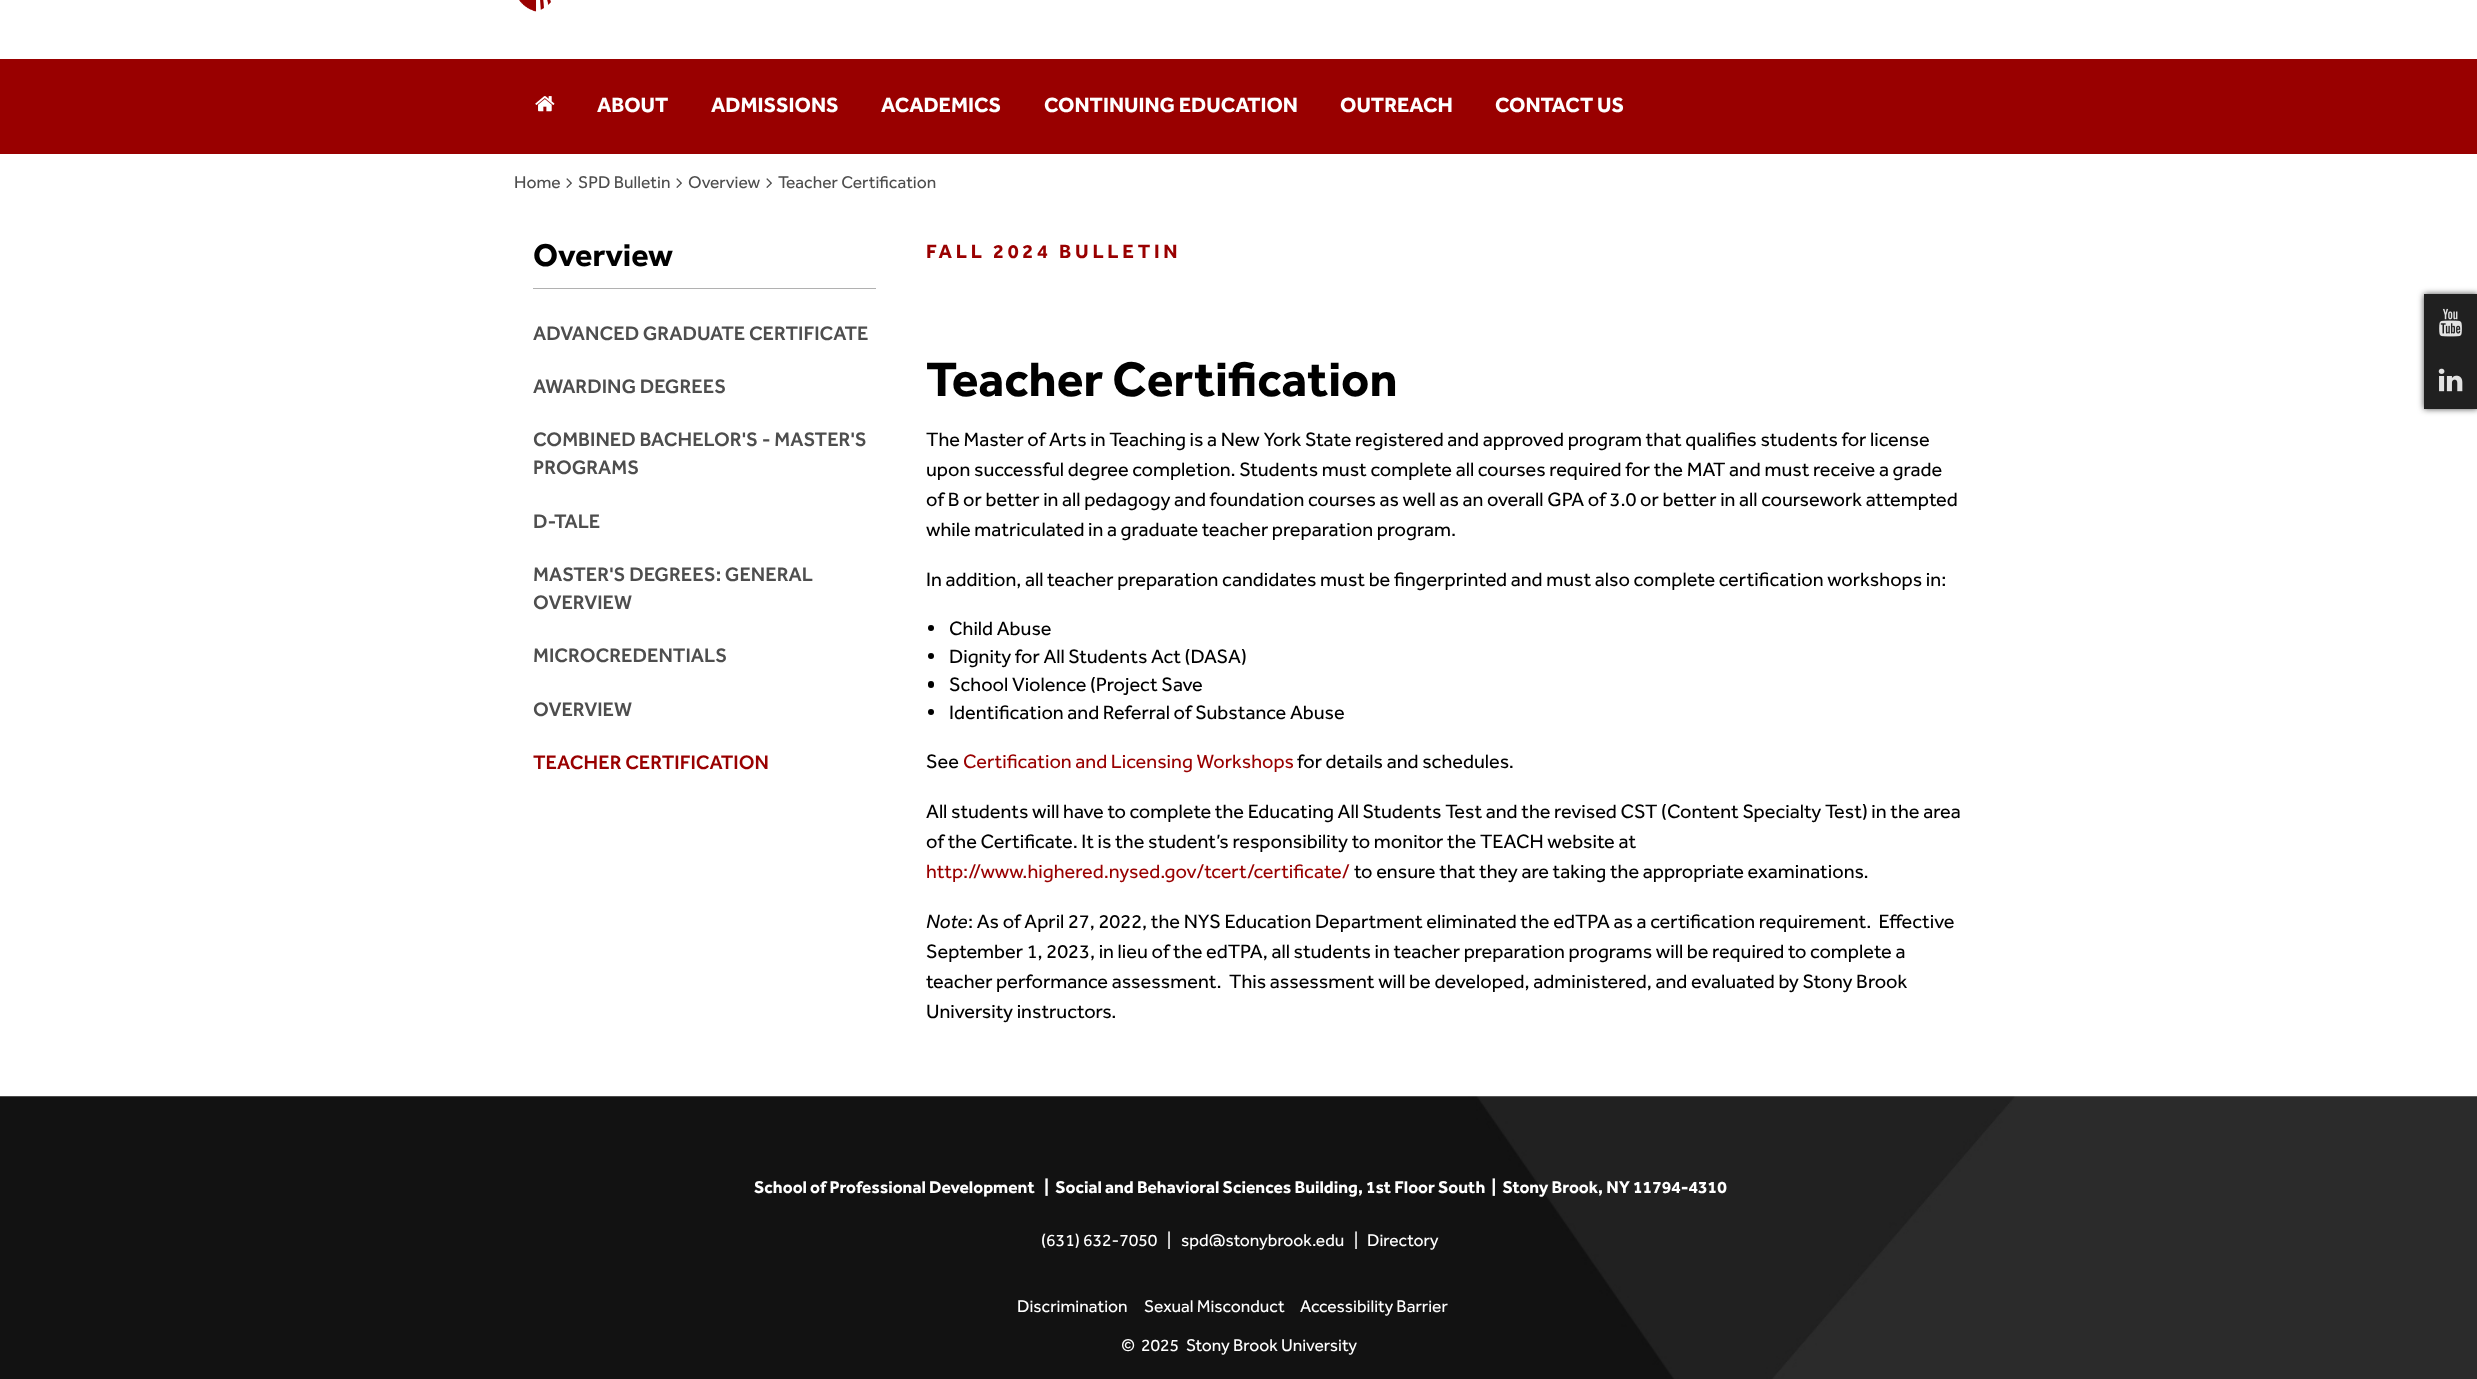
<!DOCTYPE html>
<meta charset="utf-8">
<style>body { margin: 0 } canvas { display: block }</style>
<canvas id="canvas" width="2477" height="1379"></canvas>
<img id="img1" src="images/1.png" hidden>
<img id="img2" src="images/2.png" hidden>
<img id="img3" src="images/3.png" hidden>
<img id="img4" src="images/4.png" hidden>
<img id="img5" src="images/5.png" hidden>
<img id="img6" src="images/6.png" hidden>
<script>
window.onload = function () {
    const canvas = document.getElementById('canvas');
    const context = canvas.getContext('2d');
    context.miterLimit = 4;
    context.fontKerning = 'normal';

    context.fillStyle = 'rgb(255, 255, 255)';
    context.fillRect(0, 0, 2477, 1379);
    context.drawImage(document.getElementById('img1'), 519, 0, 32, 12);
    context.fillStyle = 'rgb(153, 0, 0)';
    context.fillRect(0, 59, 2477, 95);
    context.drawImage(document.getElementById('img2'), 535, 96, 20, 16);
    context.drawImage(document.getElementById('img3'), 566, 178, 6, 10);
    context.drawImage(document.getElementById('img3'), 676, 178, 6, 10);
    context.drawImage(document.getElementById('img3'), 766, 178, 6, 10);
    context.fillStyle = 'rgb(177, 177, 177)';
    context.fillRect(533, 288, 343, 1);
    context.fillStyle = 'rgb(0, 0, 0)';
    context.beginPath();
    context.arc(931, 628, 3, 0, 2 * Math.PI);
    context.fill();
    context.beginPath();
    context.arc(931, 656, 3, 0, 2 * Math.PI);
    context.fill();
    context.beginPath();
    context.roundRect(928, 681, 6, 7, 3);
    context.fill();
    context.beginPath();
    context.arc(931, 712, 3, 0, 2 * Math.PI);
    context.fill();
    context.fillStyle = 'rgb(77, 77, 77)';
    context.filter = 'blur(3px)';
    context.beginPath();
    context.rect(2424, 294, 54, 115);
    context.fill();
    context.filter = 'none';
    context.fillStyle = 'rgb(32, 32, 32)';
    context.fillRect(2424, 294, 53, 115);
    context.drawImage(document.getElementById('img4'), 2439, 308, 23, 29);
    context.drawImage(document.getElementById('img5'), 2438, 368, 25, 24);
    context.drawImage(document.getElementById('img6'), 0, 1096, 2477, 283);
    context.font = 'bold 21.25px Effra';
    context.fillStyle = 'rgb(255, 255, 255)';
    context.fillText('ABOUT', 597, 112);
    context.fillText('ADMISSIONS', 711, 112);
    context.fillText('ACADEMICS', 881, 112);
    context.fillText('CONTINUING EDUCATION', 1044, 112);
    context.fillText('OUTREACH', 1340, 112);
    context.fillText('CONTACT US', 1495, 112);
    context.font = '17.5px Effra';
    context.fillStyle = 'rgb(78, 78, 78)';
    context.fillText('Home', 514, 188);
    context.fillText('SPD Bulletin', 578, 188);
    context.fillText('Overview', 688, 188);
    context.fillText('Teacher Certification', 778, 188);
    context.font = 'bold 32.5px Effra';
    context.fillStyle = 'rgb(0, 0, 0)';
    context.fillText('Overview', 533, 266);
    context.font = '500 20.2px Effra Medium';
    context.fillStyle = 'rgb(78, 78, 78)';
    context.fillText('ADVANCED GRADUATE CERTIFICATE', 533, 340);
    context.fillText('AWARDING DEGREES', 533, 393);
    context.fillText('COMBINED BACHELOR\'S - MASTER\'S', 533, 446);
    context.fillText('PROGRAMS', 533, 474);
    context.fillText('D-TALE', 533, 528);
    context.fillText('MASTER\'S DEGREES: GENERAL', 533, 581);
    context.fillText('OVERVIEW', 533, 609);
    context.fillText('MICROCREDENTIALS', 533, 662);
    context.fillText('OVERVIEW', 533, 716);
    context.fillStyle = 'rgb(153, 0, 0)';
    context.fillText('TEACHER CERTIFICATION', 533, 769);
    context.letterSpacing = '3.75px';
    context.font = 'bold 20px Effra';
    context.fillText('FALL 2024 BULLETIN', 926, 258);
    context.letterSpacing = '0px';
    context.font = 'bold 50px Effra';
    context.fillStyle = 'rgb(0, 0, 0)';
    context.fillText('Teacher Certification', 926, 396);
    context.font = '20px Effra';
    context.fillText('The Master of Arts in Teaching is a New York State registered and approved program that qualifies students for license', 926, 446);
    context.fillText('upon successful degree completion. Students must complete all courses required for the MAT and must receive a grade', 926, 476);
    context.fillText('of B or better in all pedagogy and foundation courses as well as an overall GPA of 3.0 or better in all coursework attempted', 926, 506);
    context.fillText('while matriculated in a graduate teacher preparation program.', 926, 536);
    context.fillText('In addition, all teacher preparation candidates must be fingerprinted and must also complete certification workshops in:', 926, 586);
    context.fillText('Child Abuse', 949, 635);
    context.fillText('Dignity for All Students Act (DASA)', 949, 663);
    context.fillText('School Violence (Project Save', 949, 691);
    context.fillText('Identification and Referral of Substance Abuse', 949, 719);
    context.fillText('See', 926, 768);
    context.fillStyle = 'rgb(153, 0, 0)';
    context.fillText('Certification and Licensing Workshops', 963, 768);
    context.fillStyle = 'rgb(0, 0, 0)';
    context.fillText('for details and schedules.', 1297, 768);
    context.fillText('All students will have to complete the Educating All Students Test and the revised CST (Content Specialty Test) in the area', 926, 818);
    context.fillText('of the Certificate. It is the student’s responsibility to monitor the TEACH website at', 926, 848);
    context.fillStyle = 'rgb(153, 0, 0)';
    context.fillText('http://www.highered.nysed.gov/tcert/certificate/', 926, 878);
    context.fillStyle = 'rgb(0, 0, 0)';
    context.fillText('to ensure that they are taking the appropriate examinations.', 1354, 878);
    context.font = 'italic 20px Effra';
    context.fillText('Note', 926, 928);
    context.font = '20px Effra';
    context.fillText(': As of April 27, 2022, the NYS Education Department eliminated the edTPA as a certification requirement.  Effective', 968, 928);
    context.fillText('September 1, 2023, in lieu of the edTPA, all students in teacher preparation programs will be required to complete a', 926, 958);
    context.fillText('teacher performance assessment.', 926, 988);
    context.fillText('This assessment will be developed, administered, and evaluated by Stony Brook', 1229, 988);
    context.fillText('University instructors.', 926, 1018);
    context.font = 'bold 17.5px Effra';
    context.fillStyle = 'rgb(255, 255, 255)';
    context.fillText('School of Professional Development   |  Social and Behavioral Sciences Building, 1st Floor South  |  Stony Brook, NY 11794-4310', 754, 1193);
    context.font = '17.5px Effra';
    context.fillText('(631) 632-7050   |', 1041, 1246);
    context.fillText('spd@stonybrook.edu', 1181, 1246);
    context.fillText('|', 1354, 1246);
    context.fillText('Directory', 1367, 1246);
    context.fillText('Discrimination', 1017, 1312);
    context.fillText('Sexual Misconduct', 1144, 1312);
    context.fillText('Accessibility Barrier', 1300, 1312);
    context.fillText('©', 1121, 1351);
    context.fillText('2025', 1141, 1351);
    context.fillText('Stony Brook University', 1186, 1351);
};
</script>
